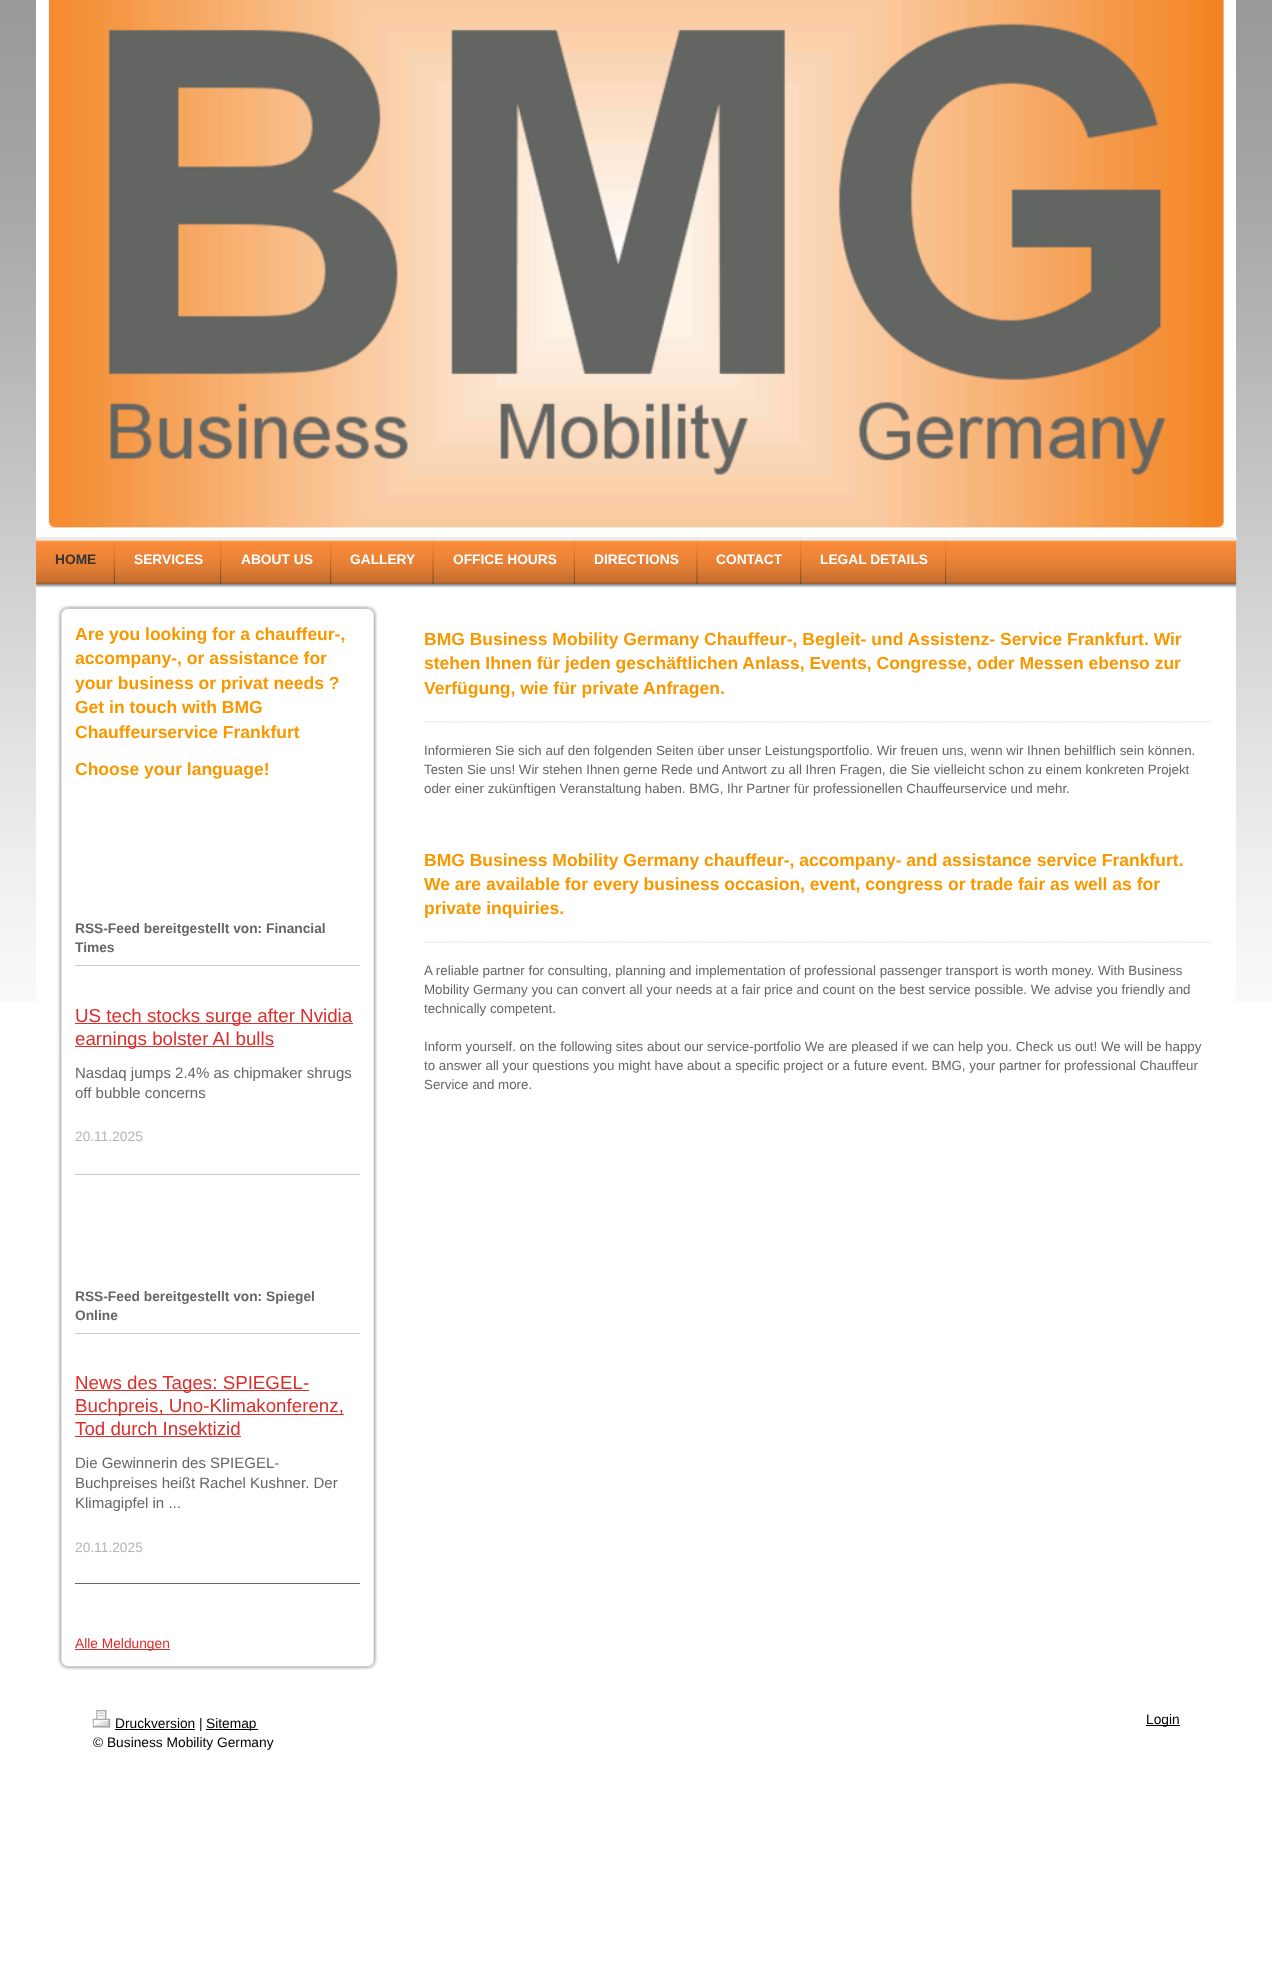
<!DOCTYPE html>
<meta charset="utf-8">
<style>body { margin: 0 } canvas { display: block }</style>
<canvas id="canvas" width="1272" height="1976"></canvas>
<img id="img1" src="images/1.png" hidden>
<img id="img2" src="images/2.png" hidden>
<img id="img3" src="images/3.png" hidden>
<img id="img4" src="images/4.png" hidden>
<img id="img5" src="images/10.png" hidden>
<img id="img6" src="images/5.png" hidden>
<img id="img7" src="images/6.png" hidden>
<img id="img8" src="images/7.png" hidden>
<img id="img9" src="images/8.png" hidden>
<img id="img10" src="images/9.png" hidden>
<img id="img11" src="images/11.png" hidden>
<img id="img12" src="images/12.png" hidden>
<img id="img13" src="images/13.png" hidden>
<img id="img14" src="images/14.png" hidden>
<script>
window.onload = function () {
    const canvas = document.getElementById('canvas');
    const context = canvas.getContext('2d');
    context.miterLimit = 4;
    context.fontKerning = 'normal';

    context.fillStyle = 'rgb(255, 255, 255)';
    context.fillRect(0, 0, 1272, 1976);
    context.drawImage(document.getElementById('img1'), 0, 0, 1272, 1002);
    context.fillRect(36, 0, 1200, 1002);
    context.fillStyle = 'rgb(238, 238, 238)';
    context.fillRect(49, 0, 1175, 528);
    context.drawImage(document.getElementById('img2'), 48, 0, 1176, 528);
    context.drawImage(document.getElementById('img3'), 49, 521, 6, 7);
    context.drawImage(document.getElementById('img4'), 1217, 521, 7, 7);
    context.fillStyle = 'rgb(236, 236, 236)';
    context.fillRect(36, 537, 1201, 3);
    context.fillStyle = 'rgb(251, 140, 59)';
    context.fillRect(36, 540, 1200, 44);
    context.drawImage(document.getElementById('img5'), 36, 583, 1201, 5);
    context.drawImage(document.getElementById('img6'), 36, 540, 1201, 44);
    context.drawImage(document.getElementById('img7'), 113, 540, 2, 44);
    context.drawImage(document.getElementById('img8'), 220, 540, 2, 44);
    context.drawImage(document.getElementById('img8'), 330, 540, 2, 44);
    context.drawImage(document.getElementById('img9'), 432, 540, 2, 44);
    context.drawImage(document.getElementById('img7'), 573, 540, 2, 44);
    context.drawImage(document.getElementById('img10'), 696, 540, 2, 44);
    context.drawImage(document.getElementById('img8'), 800, 540, 2, 44);
    context.drawImage(document.getElementById('img8'), 945, 540, 2, 44);
    context.drawImage(document.getElementById('img11'), 57, 605, 321, 12);
    context.drawImage(document.getElementById('img12'), 57, 616, 321, 1043);
    context.fillStyle = 'rgb(204, 204, 204)';
    context.fillRect(75, 965, 285, 1);
    context.fillStyle = 'rgb(219, 47, 44)';
    context.fillRect(75, 1023, 278, 1);
    context.fillRect(75, 1046, 199, 1);
    context.fillStyle = 'rgb(204, 204, 204)';
    context.fillRect(75, 1174, 285, 1);
    context.fillRect(75, 1333, 285, 1);
    context.fillStyle = 'rgb(219, 47, 44)';
    context.fillRect(75, 1390, 234, 1);
    context.fillRect(75, 1414, 269, 1);
    context.fillRect(75, 1436, 166, 1);
    context.fillStyle = 'rgb(102, 102, 102)';
    context.fillRect(75, 1583, 285, 1);
    context.fillStyle = 'rgb(219, 47, 44)';
    context.fillRect(75, 1649, 95, 1);
    context.drawImage(document.getElementById('img13'), 57, 1658, 321, 12);
    context.beginPath();
    context.moveTo(424, 722);
    context.lineTo(1211, 722);
    context.strokeStyle = 'rgb(204, 204, 204)';
    context.lineWidth = 1.2;
    context.setLineDash([1.25, 1.25]);
    context.stroke();
    context.beginPath();
    context.moveTo(424, 942);
    context.lineTo(1211, 942);
    context.stroke();
    context.drawImage(document.getElementById('img14'), 92, 1710, 19, 18);
    context.fillStyle = 'rgb(0, 0, 0)';
    context.fillRect(115, 1729, 80, 1);
    context.fillRect(206, 1729, 52, 1);
    context.fillRect(1146, 1725, 34, 1);
    context.font = 'bold 13.75px Liberation Sans';
    context.fillStyle = 'rgb(51, 51, 51)';
    context.fillText('HOME', 55, 564);
    context.fillStyle = 'rgb(255, 255, 255)';
    context.fillText('SERVICES', 134, 564);
    context.fillText('ABOUT US', 241, 564);
    context.fillText('GALLERY', 350, 564);
    context.fillText('OFFICE HOURS', 453, 564);
    context.fillText('DIRECTIONS', 594, 564);
    context.fillText('CONTACT', 716, 564);
    context.fillText('LEGAL DETAILS', 820, 564);
    context.font = 'bold 17.5px Liberation Sans';
    context.fillStyle = 'rgb(248, 152, 1)';
    context.fillText('Are you looking for a chauffeur-,', 75, 640);
    context.fillText('accompany-, or assistance for', 75, 664);
    context.fillText('your business or privat needs ?', 75, 689);
    context.fillText('Get in touch with BMG', 75, 713);
    context.fillText('Chauffeurservice Frankfurt', 75, 738);
    context.fillText('Choose your language!', 75, 775);
    context.font = 'bold 13.75px Liberation Sans';
    context.fillStyle = 'rgb(102, 102, 102)';
    context.fillText('RSS-Feed bereitgestellt von: Financial', 75, 933);
    context.fillText('Times', 75, 952);
    context.font = '18.75px Liberation Sans';
    context.fillStyle = 'rgb(219, 47, 44)';
    context.fillText('US tech stocks surge after Nvidia', 75, 1022);
    context.fillText('earnings bolster AI bulls', 75, 1045);
    context.font = '15px Liberation Sans';
    context.fillStyle = 'rgb(102, 102, 102)';
    context.fillText('Nasdaq jumps 2.4% as chipmaker shrugs', 75, 1078);
    context.fillText('off bubble concerns', 75, 1098);
    context.font = '13.75px Liberation Sans';
    context.fillStyle = 'rgb(181, 181, 181)';
    context.fillText('20.11.2025', 75, 1141);
    context.font = 'bold 13.75px Liberation Sans';
    context.fillStyle = 'rgb(102, 102, 102)';
    context.fillText('RSS-Feed bereitgestellt von: Spiegel', 75, 1301);
    context.fillText('Online', 75, 1320);
    context.font = '18.75px Liberation Sans';
    context.fillStyle = 'rgb(219, 47, 44)';
    context.fillText('News des Tages: SPIEGEL-', 75, 1389);
    context.fillText('Buchpreis, Uno-Klimakonferenz,', 75, 1412);
    context.fillText('Tod durch Insektizid', 75, 1435);
    context.font = '15px Liberation Sans';
    context.fillStyle = 'rgb(102, 102, 102)';
    context.fillText('Die Gewinnerin des SPIEGEL-', 75, 1468);
    context.fillText('Buchpreises heißt Rachel Kushner. Der', 75, 1488);
    context.fillText('Klimagipfel in ...', 75, 1508);
    context.font = '13.75px Liberation Sans';
    context.fillStyle = 'rgb(181, 181, 181)';
    context.fillText('20.11.2025', 75, 1552);
    context.fillStyle = 'rgb(219, 47, 44)';
    context.fillText('Alle Meldungen', 75, 1648);
    context.font = 'bold 17.5px Liberation Sans';
    context.fillStyle = 'rgb(248, 152, 1)';
    context.fillText('BMG Business Mobility Germany Chauffeur-, Begleit- und Assistenz- Service Frankfurt. Wir', 424, 645);
    context.fillText('stehen Ihnen für jeden geschäftlichen Anlass, Events, Congresse, oder Messen ebenso zur', 424, 669);
    context.fillText('Verfügung, wie für private Anfragen.', 424, 694);
    context.font = '13.33px Liberation Sans';
    context.fillStyle = 'rgb(102, 102, 102)';
    context.fillText('Informieren Sie sich auf den folgenden Seiten über unser Leistungsportfolio. Wir freuen uns, wenn wir Ihnen behilflich sein können.', 424, 755);
    context.fillText('Testen Sie uns! Wir stehen Ihnen gerne Rede und Antwort zu all Ihren Fragen, die Sie vielleicht schon zu einem konkreten Projekt', 424, 774);
    context.fillText('oder einer zukünftigen Veranstaltung haben. BMG, Ihr Partner für professionellen Chauffeurservice und mehr.', 424, 793);
    context.font = 'bold 17.5px Liberation Sans';
    context.fillStyle = 'rgb(248, 152, 1)';
    context.fillText('BMG Business Mobility Germany chauffeur-, accompany- and assistance service Frankfurt.', 424, 866);
    context.fillText('We are available for every business occasion, event, congress or trade fair as well as for', 424, 890);
    context.fillText('private inquiries.', 424, 914);
    context.font = '13.33px Liberation Sans';
    context.fillStyle = 'rgb(102, 102, 102)';
    context.fillText('A reliable partner for consulting, planning and implementation of professional passenger transport is worth money. With Business', 424, 975);
    context.fillText('Mobility Germany you can convert all your needs at a fair price and count on the best service possible. We advise you friendly and', 424, 994);
    context.fillText('technically competent.', 424, 1013);
    context.fillText('Inform yourself. on the following sites about our service-portfolio We are pleased if we can help you. Check us out! We will be happy', 424, 1051);
    context.fillText('to answer all your questions you might have about a specific project or a future event. BMG, your partner for professional Chauffeur', 424, 1070);
    context.fillText('Service and more.', 424, 1089);
    context.font = '13.75px Liberation Sans';
    context.fillStyle = 'rgb(0, 0, 0)';
    context.fillText('Druckversion |', 115, 1728);
    context.fillText('Sitemap', 206, 1728);
    context.save();
    context.beginPath();
    context.rect(93, 1710, 1087, 63);
    context.clip();
    context.fillText('© Business Mobility Germany', 93, 1747);
    context.restore();
    context.fillText('Login', 1146, 1724);
};
</script>
